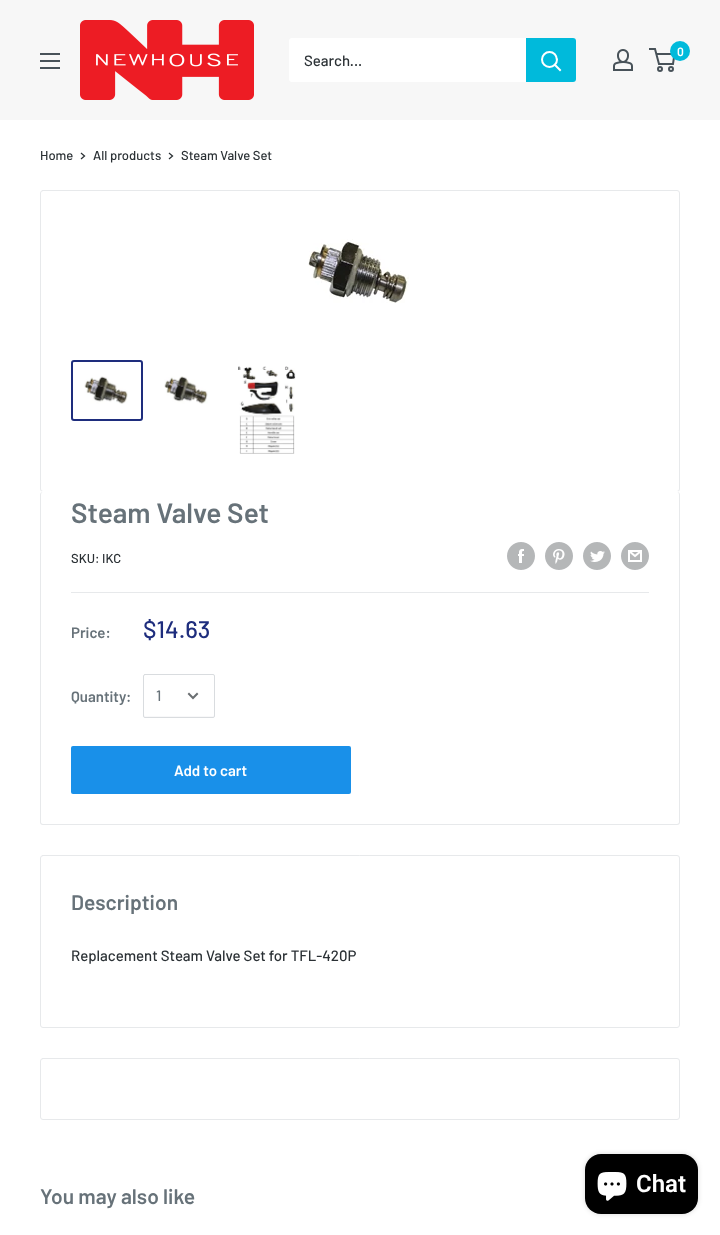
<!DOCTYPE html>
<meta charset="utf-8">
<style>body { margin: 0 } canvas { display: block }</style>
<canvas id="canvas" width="720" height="1235"></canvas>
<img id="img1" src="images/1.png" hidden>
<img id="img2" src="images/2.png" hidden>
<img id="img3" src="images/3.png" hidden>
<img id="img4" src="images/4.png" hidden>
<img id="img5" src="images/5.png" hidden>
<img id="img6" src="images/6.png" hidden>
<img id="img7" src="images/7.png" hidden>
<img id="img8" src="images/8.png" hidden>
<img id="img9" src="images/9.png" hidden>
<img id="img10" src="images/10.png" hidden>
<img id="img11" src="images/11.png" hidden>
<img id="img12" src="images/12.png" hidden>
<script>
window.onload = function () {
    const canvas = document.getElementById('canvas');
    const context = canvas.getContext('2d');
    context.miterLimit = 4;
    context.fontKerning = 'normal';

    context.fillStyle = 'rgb(255, 255, 255)';
    context.fillRect(0, 0, 720, 1235);
    context.fillStyle = 'rgb(247, 247, 247)';
    context.fillRect(0, 0, 720, 120);
    context.drawImage(document.getElementById('img1'), 80, 20, 174, 80);
    context.drawImage(document.getElementById('img2'), 613, 49, 20, 22);
    context.beginPath();
    context.arc(660, 69, 2, 0, 2 * Math.PI);
    context.strokeStyle = 'rgb(72, 82, 89)';
    context.lineWidth = 2;
    context.stroke();
    context.beginPath();
    context.arc(671, 69, 2, 0, 2 * Math.PI);
    context.stroke();
    context.beginPath();
    context.moveTo(656.5, 54);
    context.lineTo(674.5, 54);
    context.lineTo(673, 64);
    context.lineTo(659, 64);
    context.lineTo(655, 49);
    context.lineTo(649, 49);
    context.stroke();
    context.fillStyle = 'rgb(0, 186, 219)';
    context.beginPath();
    context.arc(680, 51, 10, 0, 2 * Math.PI);
    context.fill();
    context.drawImage(document.getElementById('img3'), 40, 53, 20, 16);
    context.fillStyle = 'rgb(255, 255, 255)';
    context.beginPath();
    context.roundRect(289, 38, 287, 44, 3);
    context.fill();
    context.fillStyle = 'rgb(0, 186, 219)';
    context.beginPath();
    context.roundRect(526, 38, 50, 44, [0, 3, 3, 0]);
    context.fill();
    context.beginPath();
    context.moveTo(560, 70);
    context.lineTo(555, 65);
    context.strokeStyle = 'rgb(255, 255, 255)';
    context.lineCap = 'square';
    context.stroke();
    context.beginPath();
    context.arc(549.5, 59.5, 7.5, 0, 2 * Math.PI);
    context.stroke();
    context.beginPath();
    context.moveTo(81.5, 153.5);
    context.lineTo(84.5, 156);
    context.lineTo(81.5, 158.5);
    context.strokeStyle = 'rgb(43, 49, 53)';
    context.lineWidth = 1.3;
    context.stroke();
    context.beginPath();
    context.moveTo(169.5, 153.5);
    context.lineTo(172.5, 156);
    context.lineTo(169.5, 158.5);
    context.stroke();
    context.beginPath();
    context.roundRect(40.5, 190.5, 639, 301, 2.5);
    context.strokeStyle = 'rgb(231, 233, 235)';
    context.lineWidth = 1;
    context.stroke();
    context.drawImage(document.getElementById('img4'), 308, 239, 101, 64);
    context.beginPath();
    context.roundRect(72, 361, 70, 59, 2);
    context.strokeStyle = 'rgb(30, 45, 125)';
    context.lineWidth = 2;
    context.stroke();
    context.drawImage(document.getElementById('img5'), 84, 376, 44, 28);
    context.drawImage(document.getElementById('img6'), 164, 376, 44, 28);
    context.drawImage(document.getElementById('img7'), 238, 366, 58, 88);
    context.fillStyle = 'rgb(255, 255, 255)';
    context.beginPath();
    context.moveTo(43, 491);
    context.bezierCurveTo(41, 491, 40, 493, 40, 495);
    context.bezierCurveTo(40, 493, 41, 492, 43, 492);
    context.lineTo(677, 492);
    context.bezierCurveTo(679, 492, 680, 493, 680, 495);
    context.bezierCurveTo(680, 493, 679, 491, 677, 491);
    context.closePath();
    context.fill();
    context.fillStyle = 'rgb(231, 233, 235)';
    context.beginPath();
    context.moveTo(43, 492);
    context.lineTo(677, 492);
    context.bezierCurveTo(679, 492, 680, 493, 680, 495);
    context.lineTo(680, 822);
    context.bezierCurveTo(680, 824, 679, 825, 677, 825);
    context.lineTo(43, 825);
    context.bezierCurveTo(41, 825, 40, 824, 40, 822);
    context.lineTo(40, 495);
    context.bezierCurveTo(40, 493, 41, 492, 43, 492);
    context.closePath();
    context.moveTo(43, 492);
    context.lineTo(677, 492);
    context.bezierCurveTo(678, 492, 679, 493, 679, 495);
    context.lineTo(679, 822);
    context.bezierCurveTo(679, 823, 678, 824, 677, 824);
    context.lineTo(43, 824);
    context.bezierCurveTo(42, 824, 41, 823, 41, 822);
    context.lineTo(41, 495);
    context.bezierCurveTo(41, 493, 42, 492, 43, 492);
    context.closePath();
    context.fill('evenodd');
    context.drawImage(document.getElementById('img8'), 507, 542, 28, 28);
    context.drawImage(document.getElementById('img9'), 545, 542, 28, 28);
    context.drawImage(document.getElementById('img10'), 583, 542, 28, 28);
    context.drawImage(document.getElementById('img11'), 621, 542, 28, 28);
    context.fillRect(71, 592, 578, 1);
    context.fillStyle = 'rgb(248, 248, 249)';
    context.beginPath();
    context.moveTo(144, 715);
    context.bezierCurveTo(144, 716, 144, 717, 145, 717);
    context.lineTo(202, 717);
    context.bezierCurveTo(205, 717, 214, 720, 214, 715);
    context.lineTo(213, 716);
    context.lineTo(149, 716);
    context.bezierCurveTo(148, 716, 145, 717, 144, 715);
    context.closePath();
    context.fill();
    context.beginPath();
    context.roundRect(143.5, 674.5, 71, 43, 1.5);
    context.strokeStyle = 'rgb(217, 220, 223)';
    context.lineWidth = 1;
    context.stroke();
    context.beginPath();
    context.moveTo(197, 694);
    context.lineTo(193, 698);
    context.lineTo(189, 694);
    context.strokeStyle = 'rgb(107, 111, 114)';
    context.lineWidth = 2;
    context.stroke();
    context.fillStyle = 'rgb(25, 144, 233)';
    context.beginPath();
    context.roundRect(71, 746, 280, 48, 2);
    context.fill();
    context.beginPath();
    context.roundRect(40.5, 855.5, 639, 172, 2.5);
    context.strokeStyle = 'rgb(231, 233, 235)';
    context.lineWidth = 1;
    context.stroke();
    context.beginPath();
    context.roundRect(40.5, 1058.5, 639, 61, 2.5);
    context.stroke();
    context.fillStyle = 'rgba(0, 0, 0, 0.15)';
    context.filter = 'blur(2.5px)';
    context.beginPath();
    context.roundRect(585, 1154, 113, 60, 16);
    context.fill();
    context.filter = 'none';
    context.fillStyle = 'rgb(0, 0, 0)';
    context.beginPath();
    context.roundRect(585, 1154, 113, 60, 16);
    context.fill();
    context.drawImage(document.getElementById('img12'), 597, 1172, 30, 29);
    context.font = '600 12px Barlow';
    context.fillStyle = 'rgb(255, 255, 255)';
    context.fillText('0', 677, 56);
    context.font = '500 15px Barlow';
    context.fillStyle = 'rgb(43, 49, 53)';
    context.fillText('Search...', 304, 66);
    context.font = '500 13px Barlow';
    context.fillText('Home', 40, 160);
    context.fillText('All products', 93, 160);
    context.fillText('Steam Valve Set', 181, 160);
    context.font = '600 28px Barlow';
    context.fillStyle = 'rgb(103, 114, 121)';
    context.fillText('Steam Valve Set', 71, 523);
    context.font = '500 13px Barlow';
    context.fillStyle = 'rgb(43, 49, 53)';
    context.fillText('SKU: IKC', 71, 563);
    context.font = '600 15px Barlow';
    context.fillStyle = 'rgb(103, 114, 121)';
    context.fillText('Price:', 71, 638);
    context.font = '500 24px Barlow';
    context.fillStyle = 'rgb(30, 45, 125)';
    context.fillText('$14.63', 143, 638);
    context.font = '600 15px Barlow';
    context.fillStyle = 'rgb(103, 114, 121)';
    context.fillText('Quantity:', 71, 702);
    context.font = '500 15px Barlow';
    context.fillText('1', 156, 701);
    context.font = '600 15px Barlow';
    context.fillStyle = 'rgb(255, 255, 255)';
    context.fillText('Add to cart', 174, 776);
    context.font = '600 21px Barlow';
    context.fillStyle = 'rgb(103, 114, 121)';
    context.fillText('Description', 71, 910);
    context.font = '500 15px Barlow';
    context.fillStyle = 'rgb(43, 49, 53)';
    context.fillText('Replacement Steam Valve Set for TFL-420P', 71, 961);
    context.font = '600 21px Barlow';
    context.fillStyle = 'rgb(103, 114, 121)';
    context.fillText('You may also like', 40, 1204);
    context.font = '600 24px Roboto';
    context.fillStyle = 'rgb(255, 255, 255)';
    context.fillText('Chat', 636, 1192);
};
</script>
